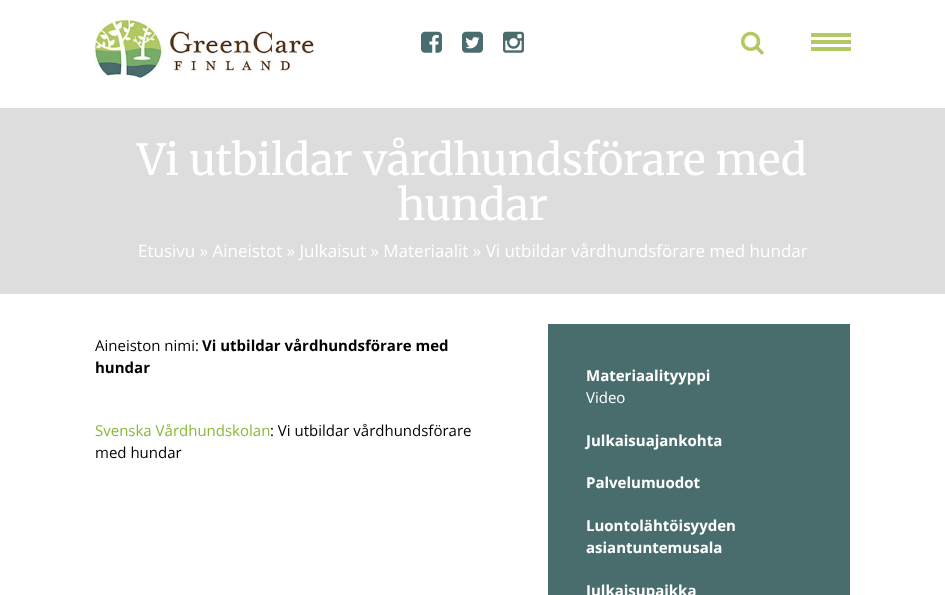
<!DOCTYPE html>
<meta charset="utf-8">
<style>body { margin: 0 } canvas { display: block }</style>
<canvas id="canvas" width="945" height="595"></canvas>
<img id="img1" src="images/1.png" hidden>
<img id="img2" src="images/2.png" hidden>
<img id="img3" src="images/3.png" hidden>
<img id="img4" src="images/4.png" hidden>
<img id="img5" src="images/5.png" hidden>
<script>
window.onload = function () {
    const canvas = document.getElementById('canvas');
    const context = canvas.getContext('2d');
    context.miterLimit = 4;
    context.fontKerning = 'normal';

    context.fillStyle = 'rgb(255, 255, 255)';
    context.fillRect(0, 0, 945, 595);
    context.drawImage(document.getElementById('img1'), 95, 20, 219, 58);
    context.drawImage(document.getElementById('img2'), 421, 31, 21, 22);
    context.drawImage(document.getElementById('img3'), 462, 31, 21, 22);
    context.drawImage(document.getElementById('img4'), 503, 31, 21, 22);
    context.drawImage(document.getElementById('img5'), 741, 31, 23, 24);
    context.fillStyle = 'rgb(177, 201, 99)';
    context.fillRect(811, 33, 40, 4);
    context.fillRect(811, 40, 40, 4);
    context.fillRect(811, 47, 40, 4);
    context.fillStyle = 'rgb(221, 221, 221)';
    context.fillRect(0, 108, 945, 186);
    context.fillStyle = 'rgb(73, 108, 109)';
    context.fillRect(548, 324, 302, 271);
    context.font = '300 42.8px Merriweather';
    context.fillStyle = 'rgb(255, 255, 255)';
    context.fillText('Vi utbildar vårdhundsförare med', 137, 175);
    context.fillText('hundar', 397, 220);
    context.font = '17px Open Sans';
    context.fillText('Etusivu » Aineistot » Julkaisut » Materiaalit » Vi utbildar vårdhundsförare med hundar', 138, 257);
    context.font = '15px Open Sans';
    context.fillStyle = 'rgb(0, 0, 0)';
    context.fillText('Aineiston nimi:', 95, 351);
    context.font = 'bold 15px Open Sans';
    context.fillText('Vi utbildar vårdhundsförare med', 202, 351);
    context.fillText('hundar', 95, 373);
    context.font = '15px Open Sans';
    context.fillStyle = 'rgb(138, 184, 57)';
    context.fillText('Svenska Vårdhundskolan', 95, 436);
    context.fillStyle = 'rgb(0, 0, 0)';
    context.fillText(': Vi utbildar vårdhundsförare', 270, 436);
    context.fillText('med hundar', 95, 458);
    context.font = 'bold 15px Open Sans';
    context.fillStyle = 'rgb(255, 255, 255)';
    context.fillText('Materiaalityyppi', 586, 381);
    context.font = '15px Open Sans';
    context.fillText('Video', 586, 403);
    context.font = 'bold 15px Open Sans';
    context.fillText('Julkaisuajankohta', 586, 446);
    context.fillText('Palvelumuodot', 586, 488);
    context.fillText('Luontolähtöisyyden', 586, 531);
    context.fillText('asiantuntemusala', 586, 553);
    context.fillText('Julkaisupaikka', 586, 596);
};
</script>
